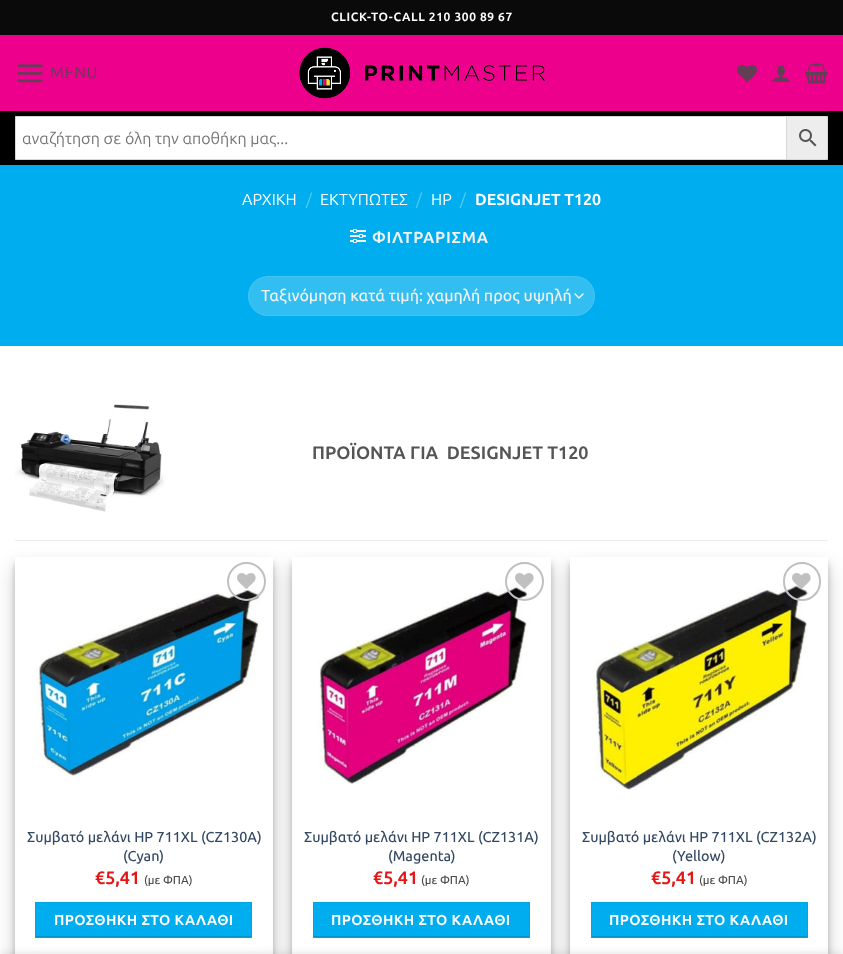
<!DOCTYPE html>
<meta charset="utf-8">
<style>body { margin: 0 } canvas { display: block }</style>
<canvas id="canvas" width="843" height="954"></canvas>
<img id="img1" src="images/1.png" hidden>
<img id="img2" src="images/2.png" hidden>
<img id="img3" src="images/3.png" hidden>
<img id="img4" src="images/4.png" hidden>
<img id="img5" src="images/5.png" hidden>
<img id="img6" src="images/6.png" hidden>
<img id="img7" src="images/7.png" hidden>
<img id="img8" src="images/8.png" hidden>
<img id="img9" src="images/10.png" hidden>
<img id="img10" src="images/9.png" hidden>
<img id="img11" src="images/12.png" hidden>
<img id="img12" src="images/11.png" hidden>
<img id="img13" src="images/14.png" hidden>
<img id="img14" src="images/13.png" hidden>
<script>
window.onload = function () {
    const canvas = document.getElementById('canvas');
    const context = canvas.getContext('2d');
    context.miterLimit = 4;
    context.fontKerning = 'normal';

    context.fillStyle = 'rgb(255, 255, 255)';
    context.fillRect(0, 0, 843, 954);
    context.fillStyle = 'rgb(10, 10, 10)';
    context.fillRect(0, 0, 843, 35);
    context.fillStyle = 'rgb(236, 0, 140)';
    context.fillRect(0, 35, 843, 76);
    context.drawImage(document.getElementById('img1'), 17, 64, 26, 19);
    context.drawImage(document.getElementById('img2'), 299, 47, 246, 52);
    context.drawImage(document.getElementById('img3'), 737, 64, 20, 18);
    context.drawImage(document.getElementById('img4'), 772, 65, 18, 17);
    context.drawImage(document.getElementById('img5'), 805, 63, 23, 21);
    context.fillStyle = 'rgb(0, 0, 0)';
    context.fillRect(0, 111, 843, 54);
    context.fillStyle = 'rgb(7, 7, 7)';
    context.fillRect(15, 111, 813, 1);
    context.fillStyle = 'rgb(237, 237, 237)';
    context.beginPath();
    context.rect(786.5, 116.5, 41, 43);
    context.fill();
    context.strokeStyle = 'rgb(216, 216, 216)';
    context.stroke();
    context.fillStyle = 'rgb(255, 255, 255)';
    context.beginPath();
    context.rect(15.5, 116.5, 771, 43);
    context.fill();
    context.stroke();
    context.drawImage(document.getElementById('img6'), 799, 129, 18, 18);
    context.fillStyle = 'rgb(0, 174, 239)';
    context.fillRect(0, 165, 843, 181);
    context.drawImage(document.getElementById('img7'), 350, 229, 16, 14);
    context.fillStyle = 'rgb(51, 190, 242)';
    context.beginPath();
    context.roundRect(248, 276, 347, 40, 20);
    context.fill();
    context.beginPath();
    context.moveTo(575, 294);
    context.lineTo(579, 298);
    context.lineTo(583, 294);
    context.strokeStyle = 'rgb(255, 255, 255)';
    context.lineWidth = 1.3;
    context.lineCap = 'round';
    context.lineJoin = 'round';
    context.stroke();
    context.beginPath();
    context.roundRect(248.5, 276.5, 346, 39, 19.5);
    context.strokeStyle = 'rgba(255, 255, 255, 0.09)';
    context.lineWidth = 1;
    context.lineJoin = 'miter';
    context.stroke();
    context.fillStyle = 'rgb(236, 236, 236)';
    context.fillRect(15, 540, 813, 1);
    context.drawImage(document.getElementById('img8'), 15, 404, 150, 108);
    context.save();
    context.beginPath();
    context.moveTo(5, 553);
    context.lineTo(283, 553);
    context.lineTo(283, 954);
    context.lineTo(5, 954);
    context.closePath();
    context.moveTo(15, 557);
    context.lineTo(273, 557);
    context.lineTo(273, 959);
    context.lineTo(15, 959);
    context.closePath();
    context.clip('evenodd');
    context.fillStyle = 'rgba(0, 0, 0, 0.22)';
    context.filter = 'blur(3px)';
    context.beginPath();
    context.rect(15, 563, 258, 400);
    context.fill();
    context.filter = 'none';
    context.restore();
    context.save();
    context.beginPath();
    context.moveTo(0, 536);
    context.lineTo(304, 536);
    context.lineTo(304, 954);
    context.lineTo(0, 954);
    context.closePath();
    context.moveTo(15, 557);
    context.lineTo(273, 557);
    context.lineTo(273, 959);
    context.lineTo(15, 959);
    context.closePath();
    context.clip('evenodd');
    context.fillStyle = 'rgba(0, 0, 0, 0.19)';
    context.filter = 'blur(10px)';
    context.beginPath();
    context.rect(15, 567, 258, 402);
    context.fill();
    context.filter = 'none';
    context.restore();
    context.drawImage(document.getElementById('img9'), 36, 588, 225, 191);
    context.beginPath();
    context.arc(246.5, 581.5, 18.5, 0, 2 * Math.PI);
    context.strokeStyle = 'rgb(192, 192, 192)';
    context.lineWidth = 2;
    context.stroke();
    context.drawImage(document.getElementById('img10'), 237, 573, 19, 16);
    context.fillStyle = 'rgb(0, 174, 239)';
    context.fillRect(36, 903, 215, 33);
    context.strokeStyle = 'rgb(0, 165, 227)';
    context.lineWidth = 1;
    context.strokeRect(35.5, 902.5, 216, 35);
    context.save();
    context.beginPath();
    context.rect(36, 903, 215, 34);
    context.clip();
    context.fillStyle = 'rgb(0, 148, 203)';
    context.beginPath();
    context.moveTo(-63, 804);
    context.lineTo(350, 804);
    context.lineTo(350, 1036);
    context.lineTo(-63, 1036);
    context.closePath();
    context.moveTo(36, 902);
    context.lineTo(251, 902);
    context.lineTo(251, 936);
    context.lineTo(36, 936);
    context.closePath();
    context.fill('evenodd');
    context.restore();
    context.save();
    context.beginPath();
    context.moveTo(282, 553);
    context.lineTo(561, 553);
    context.lineTo(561, 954);
    context.lineTo(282, 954);
    context.closePath();
    context.moveTo(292, 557);
    context.lineTo(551, 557);
    context.lineTo(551, 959);
    context.lineTo(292, 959);
    context.closePath();
    context.clip('evenodd');
    context.fillStyle = 'rgba(0, 0, 0, 0.22)';
    context.filter = 'blur(3px)';
    context.beginPath();
    context.rect(292, 563, 259, 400);
    context.fill();
    context.filter = 'none';
    context.restore();
    context.save();
    context.beginPath();
    context.moveTo(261, 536);
    context.lineTo(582, 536);
    context.lineTo(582, 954);
    context.lineTo(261, 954);
    context.closePath();
    context.moveTo(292, 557);
    context.lineTo(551, 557);
    context.lineTo(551, 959);
    context.lineTo(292, 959);
    context.closePath();
    context.clip('evenodd');
    context.fillStyle = 'rgba(0, 0, 0, 0.19)';
    context.filter = 'blur(10px)';
    context.beginPath();
    context.rect(292, 567, 259, 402);
    context.fill();
    context.filter = 'none';
    context.restore();
    context.drawImage(document.getElementById('img11'), 318, 584, 212, 200);
    context.beginPath();
    context.arc(524.5, 581.5, 18.5, 0, 2 * Math.PI);
    context.strokeStyle = 'rgb(192, 192, 192)';
    context.lineWidth = 2;
    context.stroke();
    context.drawImage(document.getElementById('img12'), 515, 573, 19, 16);
    context.fillRect(314, 903, 215, 33);
    context.strokeStyle = 'rgb(0, 165, 227)';
    context.lineWidth = 1;
    context.strokeRect(313.5, 902.5, 216, 35);
    context.save();
    context.beginPath();
    context.rect(314, 903, 215, 34);
    context.clip();
    context.fillStyle = 'rgb(0, 148, 203)';
    context.beginPath();
    context.moveTo(215, 804);
    context.lineTo(628, 804);
    context.lineTo(628, 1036);
    context.lineTo(215, 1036);
    context.closePath();
    context.moveTo(314, 902);
    context.lineTo(529, 902);
    context.lineTo(529, 936);
    context.lineTo(314, 936);
    context.closePath();
    context.fill('evenodd');
    context.restore();
    context.save();
    context.beginPath();
    context.moveTo(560, 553);
    context.lineTo(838, 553);
    context.lineTo(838, 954);
    context.lineTo(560, 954);
    context.closePath();
    context.moveTo(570, 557);
    context.lineTo(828, 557);
    context.lineTo(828, 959);
    context.lineTo(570, 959);
    context.closePath();
    context.clip('evenodd');
    context.fillStyle = 'rgba(0, 0, 0, 0.22)';
    context.filter = 'blur(3px)';
    context.beginPath();
    context.rect(570, 563, 258, 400);
    context.fill();
    context.filter = 'none';
    context.restore();
    context.save();
    context.beginPath();
    context.moveTo(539, 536);
    context.lineTo(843, 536);
    context.lineTo(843, 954);
    context.lineTo(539, 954);
    context.closePath();
    context.moveTo(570, 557);
    context.lineTo(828, 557);
    context.lineTo(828, 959);
    context.lineTo(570, 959);
    context.closePath();
    context.clip('evenodd');
    context.fillStyle = 'rgba(0, 0, 0, 0.19)';
    context.filter = 'blur(10px)';
    context.beginPath();
    context.rect(570, 567, 258, 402);
    context.fill();
    context.filter = 'none';
    context.restore();
    context.drawImage(document.getElementById('img13'), 595, 585, 214, 205);
    context.beginPath();
    context.roundRect(784, 563, 36, 37, 18);
    context.strokeStyle = 'rgb(192, 192, 192)';
    context.lineWidth = 2;
    context.stroke();
    context.drawImage(document.getElementById('img14'), 792, 573, 19, 16);
    context.fillRect(592, 903, 215, 33);
    context.strokeStyle = 'rgb(0, 165, 227)';
    context.lineWidth = 1;
    context.strokeRect(591.5, 902.5, 216, 35);
    context.save();
    context.beginPath();
    context.rect(592, 903, 215, 34);
    context.clip();
    context.fillStyle = 'rgb(0, 148, 203)';
    context.beginPath();
    context.moveTo(493, 804);
    context.lineTo(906, 804);
    context.lineTo(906, 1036);
    context.lineTo(493, 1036);
    context.closePath();
    context.moveTo(592, 902);
    context.lineTo(807, 902);
    context.lineTo(807, 936);
    context.lineTo(592, 936);
    context.closePath();
    context.fill('evenodd');
    context.restore();
    context.fillStyle = 'rgba(0, 0, 0, 0.14)';
    context.filter = 'blur(4.5px)';
    context.beginPath();
    context.rect(0, 954, 843, 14);
    context.fill();
    context.filter = 'none';
    context.letterSpacing = '0.6px';
    context.font = 'bold 12px Ubuntu Sans';
    context.fillStyle = 'rgb(255, 255, 255)';
    context.fillText('CLICK-TO-CALL 210 300 89 67', 331, 21);
    context.letterSpacing = '0.75px';
    context.font = '16px Ubuntu Sans';
    context.fillStyle = 'rgb(98, 63, 84)';
    context.fillText('MENU', 50, 78);
    context.letterSpacing = '0px';
    context.fillStyle = 'rgb(117, 117, 117)';
    context.fillText('αναζήτηση σε όλη την αποθήκη μας...', 22, 144);
    context.fillStyle = 'rgb(255, 255, 255)';
    context.fillText('ΑΡΧΙΚΗ', 242, 205);
    context.fillStyle = 'rgb(89, 202, 245)';
    context.fillText('/', 306, 205);
    context.fillStyle = 'rgb(255, 255, 255)';
    context.fillText('ΕΚΤΥΠΩΤΕΣ', 320, 205);
    context.fillStyle = 'rgb(89, 202, 245)';
    context.fillText('/', 416, 205);
    context.fillStyle = 'rgb(255, 255, 255)';
    context.fillText('HP', 431, 205);
    context.fillStyle = 'rgb(89, 202, 245)';
    context.fillText('/', 460, 205);
    context.font = 'bold 16px Ubuntu Sans';
    context.fillStyle = 'rgb(255, 255, 255)';
    context.fillText('DESIGNJET T120', 475, 205);
    context.letterSpacing = '0.75px';
    context.fillStyle = 'rgb(241, 241, 241)';
    context.fillText('ΦΙΛΤΡΑΡΙΣΜΑ', 372, 243);
    context.letterSpacing = '0px';
    context.font = '500 16px Ubuntu Sans';
    context.fillText('Ταξινόμηση κατά τιμή: χαμηλή προς υψηλή', 261, 301);
    context.font = 'bold 18px Ubuntu Sans';
    context.fillStyle = 'rgb(85, 85, 85)';
    context.fillText('ΠΡΟΪΟΝΤΑ ΓΙΑ  DESIGNJET T120', 312, 459);
    context.font = '500 14.4px Ubuntu Sans';
    context.fillStyle = 'rgb(51, 72, 98)';
    context.fillText('Συμβατό μελάνι HP 711XL (CZ130A)', 27, 842);
    context.fillText('(Cyan)', 123, 861);
    context.font = 'bold 18px Ubuntu Sans';
    context.fillStyle = 'rgb(230, 22, 22)';
    context.fillText('€5,41', 95, 884);
    context.font = '500 11.5px Ubuntu Sans';
    context.fillStyle = 'rgb(74, 74, 74)';
    context.fillText('(με ΦΠΑ)', 144, 884);
    context.letterSpacing = '0.4px';
    context.font = 'bold 14.4px Ubuntu Sans';
    context.fillStyle = 'rgb(255, 255, 255)';
    context.fillText('ΠΡΟΣΘΗΚΗ ΣΤΟ ΚΑΛΑΘΙ', 54, 925);
    context.letterSpacing = '0px';
    context.font = '500 14.4px Ubuntu Sans';
    context.fillStyle = 'rgb(51, 72, 98)';
    context.fillText('Συμβατό μελάνι HP 711XL (CZ131A)', 304, 842);
    context.fillText('(Magenta)', 388, 861);
    context.font = 'bold 18px Ubuntu Sans';
    context.fillStyle = 'rgb(230, 22, 22)';
    context.fillText('€5,41', 373, 884);
    context.font = '500 11.5px Ubuntu Sans';
    context.fillStyle = 'rgb(74, 74, 74)';
    context.fillText('(με ΦΠΑ)', 421, 884);
    context.letterSpacing = '0.4px';
    context.font = 'bold 14.4px Ubuntu Sans';
    context.fillStyle = 'rgb(255, 255, 255)';
    context.fillText('ΠΡΟΣΘΗΚΗ ΣΤΟ ΚΑΛΑΘΙ', 331, 925);
    context.letterSpacing = '0px';
    context.font = '500 14.4px Ubuntu Sans';
    context.fillStyle = 'rgb(51, 72, 98)';
    context.fillText('Συμβατό μελάνι HP 711XL (CZ132A)', 582, 842);
    context.fillText('(Yellow)', 672, 861);
    context.font = 'bold 18px Ubuntu Sans';
    context.fillStyle = 'rgb(230, 22, 22)';
    context.fillText('€5,41', 651, 884);
    context.font = '500 11.5px Ubuntu Sans';
    context.fillStyle = 'rgb(74, 74, 74)';
    context.fillText('(με ΦΠΑ)', 699, 884);
    context.letterSpacing = '0.4px';
    context.font = 'bold 14.4px Ubuntu Sans';
    context.fillStyle = 'rgb(255, 255, 255)';
    context.fillText('ΠΡΟΣΘΗΚΗ ΣΤΟ ΚΑΛΑΘΙ', 609, 925);
};
</script>
